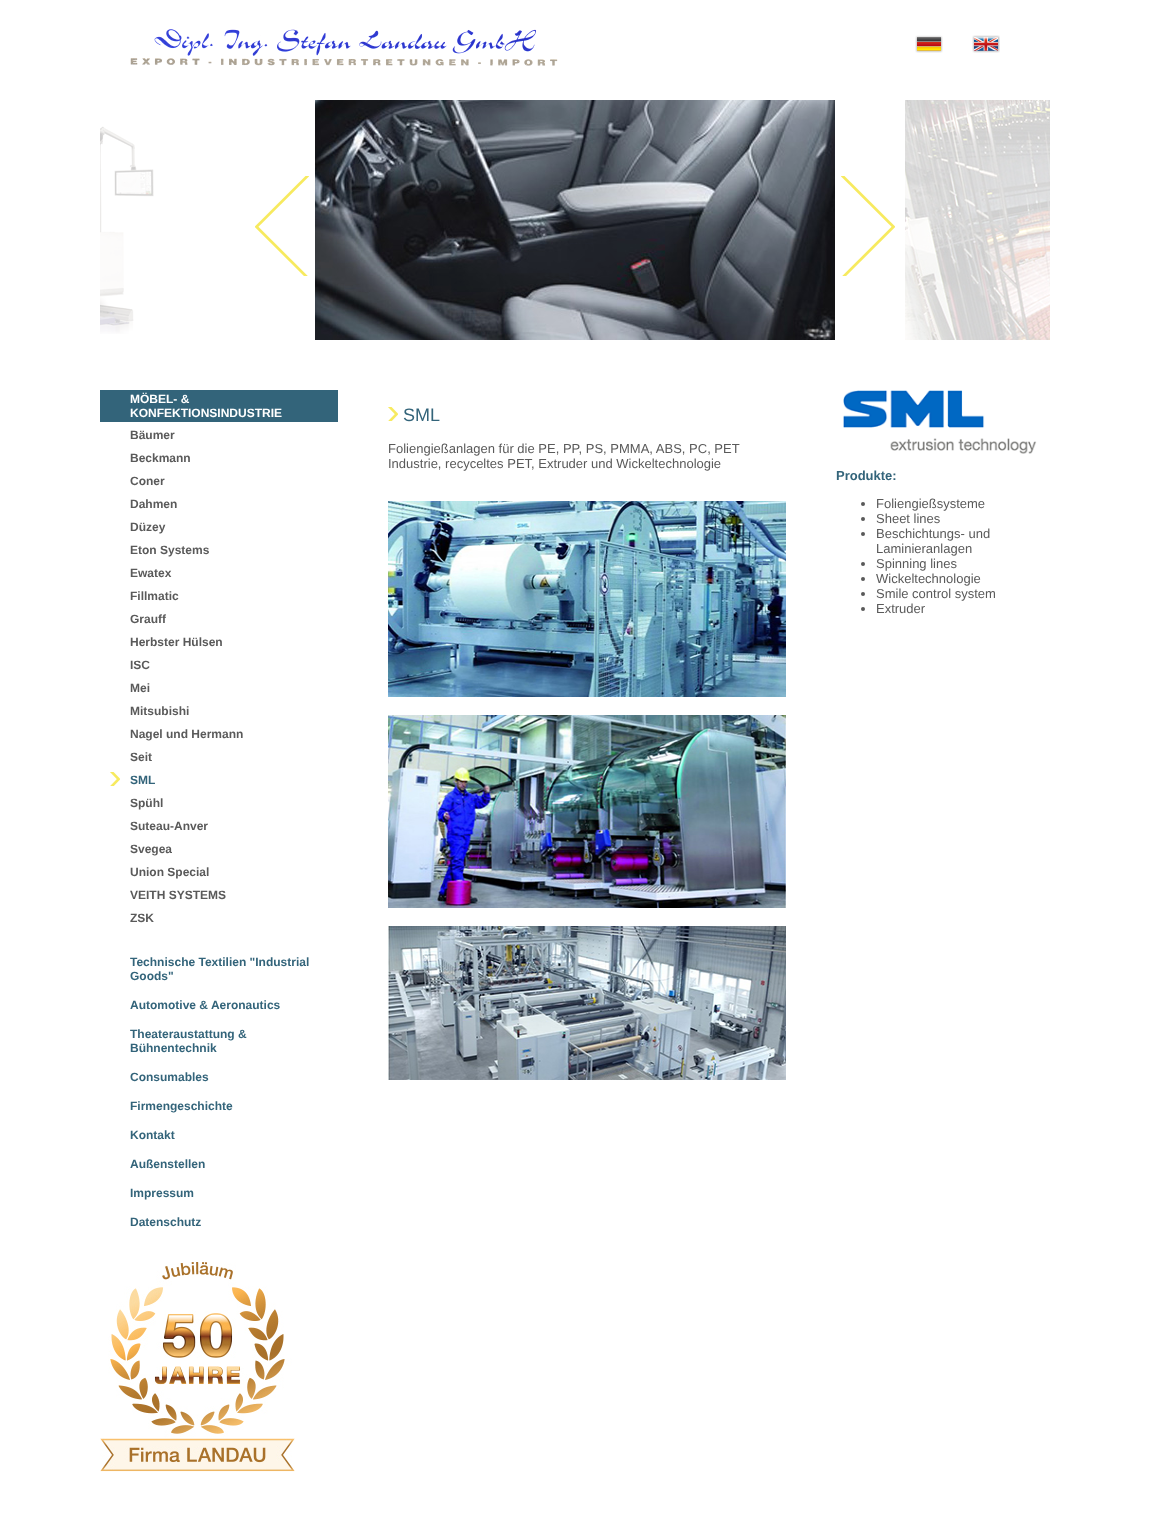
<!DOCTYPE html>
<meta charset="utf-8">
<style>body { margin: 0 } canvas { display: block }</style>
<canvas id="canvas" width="1150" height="1534"></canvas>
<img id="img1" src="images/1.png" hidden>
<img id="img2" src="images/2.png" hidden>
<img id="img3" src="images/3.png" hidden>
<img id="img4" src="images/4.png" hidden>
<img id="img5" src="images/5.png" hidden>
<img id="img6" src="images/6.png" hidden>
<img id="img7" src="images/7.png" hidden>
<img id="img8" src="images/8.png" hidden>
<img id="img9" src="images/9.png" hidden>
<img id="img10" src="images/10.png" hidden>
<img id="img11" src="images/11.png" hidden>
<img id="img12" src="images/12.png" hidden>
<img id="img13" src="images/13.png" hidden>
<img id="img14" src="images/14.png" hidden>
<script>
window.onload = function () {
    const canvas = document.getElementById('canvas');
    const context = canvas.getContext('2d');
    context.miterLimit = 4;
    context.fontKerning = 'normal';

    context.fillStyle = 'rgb(255, 255, 255)';
    context.fillRect(0, 0, 1150, 1534);
    context.drawImage(document.getElementById('img1'), 130, 29, 428, 37);
    context.drawImage(document.getElementById('img2'), 915, 35, 28, 18);
    context.drawImage(document.getElementById('img3'), 972, 35, 28, 18);
    context.drawImage(document.getElementById('img4'), 100, 126, 54, 208);
    context.drawImage(document.getElementById('img5'), 315, 100, 520, 240);
    context.drawImage(document.getElementById('img6'), 905, 100, 145, 240);
    context.drawImage(document.getElementById('img7'), 255, 176, 54, 100);
    context.drawImage(document.getElementById('img8'), 841, 176, 54, 100);
    context.fillStyle = 'rgb(51, 100, 122)';
    context.fillRect(100, 390, 238, 32);
    context.drawImage(document.getElementById('img9'), 110, 772, 10, 14);
    context.drawImage(document.getElementById('img10'), 100, 1262, 195, 210);
    context.drawImage(document.getElementById('img9'), 388, 407, 10, 14);
    context.drawImage(document.getElementById('img11'), 388, 501, 398, 196);
    context.drawImage(document.getElementById('img12'), 388, 715, 398, 193);
    context.drawImage(document.getElementById('img13'), 388, 926, 398, 154);
    context.drawImage(document.getElementById('img14'), 843, 390, 194, 64);
    context.fillStyle = 'rgb(89, 89, 89)';
    context.beginPath();
    context.arc(863, 504, 2, 0, 2 * Math.PI);
    context.fill();
    context.beginPath();
    context.arc(863, 519, 2, 0, 2 * Math.PI);
    context.fill();
    context.beginPath();
    context.arc(863, 534, 2, 0, 2 * Math.PI);
    context.fill();
    context.beginPath();
    context.arc(863, 564, 2, 0, 2 * Math.PI);
    context.fill();
    context.beginPath();
    context.arc(863, 579, 2, 0, 2 * Math.PI);
    context.fill();
    context.beginPath();
    context.arc(863, 594, 2, 0, 2 * Math.PI);
    context.fill();
    context.beginPath();
    context.arc(863, 609, 2, 0, 2 * Math.PI);
    context.fill();
    context.font = 'bold 12px Liberation Sans';
    context.fillStyle = 'rgb(255, 255, 255)';
    context.fillText('MÖBEL- &', 130, 403);
    context.fillText('KONFEKTIONSINDUSTRIE', 130, 417);
    context.fillStyle = 'rgb(90, 90, 90)';
    context.fillText('Bäumer', 130, 439);
    context.fillText('Beckmann', 130, 462);
    context.fillText('Coner', 130, 485);
    context.fillText('Dahmen', 130, 508);
    context.fillText('Düzey', 130, 531);
    context.fillText('Eton Systems', 130, 554);
    context.fillText('Ewatex', 130, 577);
    context.fillText('Fillmatic', 130, 600);
    context.fillText('Grauff', 130, 623);
    context.fillText('Herbster Hülsen', 130, 646);
    context.fillText('ISC', 130, 669);
    context.fillText('Mei', 130, 692);
    context.fillText('Mitsubishi', 130, 715);
    context.fillText('Nagel und Hermann', 130, 738);
    context.fillText('Seit', 130, 761);
    context.fillStyle = 'rgb(51, 100, 122)';
    context.fillText('SML', 130, 784);
    context.fillStyle = 'rgb(90, 90, 90)';
    context.fillText('Spühl', 130, 807);
    context.fillText('Suteau-Anver', 130, 830);
    context.fillText('Svegea', 130, 853);
    context.fillText('Union Special', 130, 876);
    context.fillText('VEITH SYSTEMS', 130, 899);
    context.fillText('ZSK', 130, 922);
    context.fillStyle = 'rgb(51, 100, 122)';
    context.fillText('Technische Textilien "Industrial', 130, 966);
    context.fillText('Goods"', 130, 980);
    context.fillText('Automotive & Aeronautics', 130, 1009);
    context.fillText('Theateraustattung &', 130, 1038);
    context.fillText('Bühnentechnik', 130, 1052);
    context.fillText('Consumables', 130, 1081);
    context.fillText('Firmengeschichte', 130, 1110);
    context.fillText('Kontakt', 130, 1139);
    context.fillText('Außenstellen', 130, 1168);
    context.fillText('Impressum', 130, 1197);
    context.fillText('Datenschutz', 130, 1226);
    context.font = '18px Liberation Sans';
    context.fillText('SML', 403, 421);
    context.font = '13px Liberation Sans';
    context.fillStyle = 'rgb(90, 90, 90)';
    context.fillText('Foliengießanlagen für die PE, PP, PS, PMMA, ABS, PC, PET', 388, 453);
    context.fillText('Industrie, recyceltes PET, Extruder und Wickeltechnologie', 388, 468);
    context.font = 'bold 13px Liberation Sans';
    context.fillStyle = 'rgb(51, 100, 122)';
    context.fillText('Produkte:', 836, 480);
    context.font = '13px Liberation Sans';
    context.fillStyle = 'rgb(90, 90, 90)';
    context.fillText('Foliengießsysteme', 876, 508);
    context.fillText('Sheet lines', 876, 523);
    context.fillText('Beschichtungs- und', 876, 538);
    context.fillText('Laminieranlagen', 876, 553);
    context.fillText('Spinning lines', 876, 568);
    context.fillText('Wickeltechnologie', 876, 583);
    context.fillText('Smile control system', 876, 598);
    context.fillText('Extruder', 876, 613);
};
</script>
